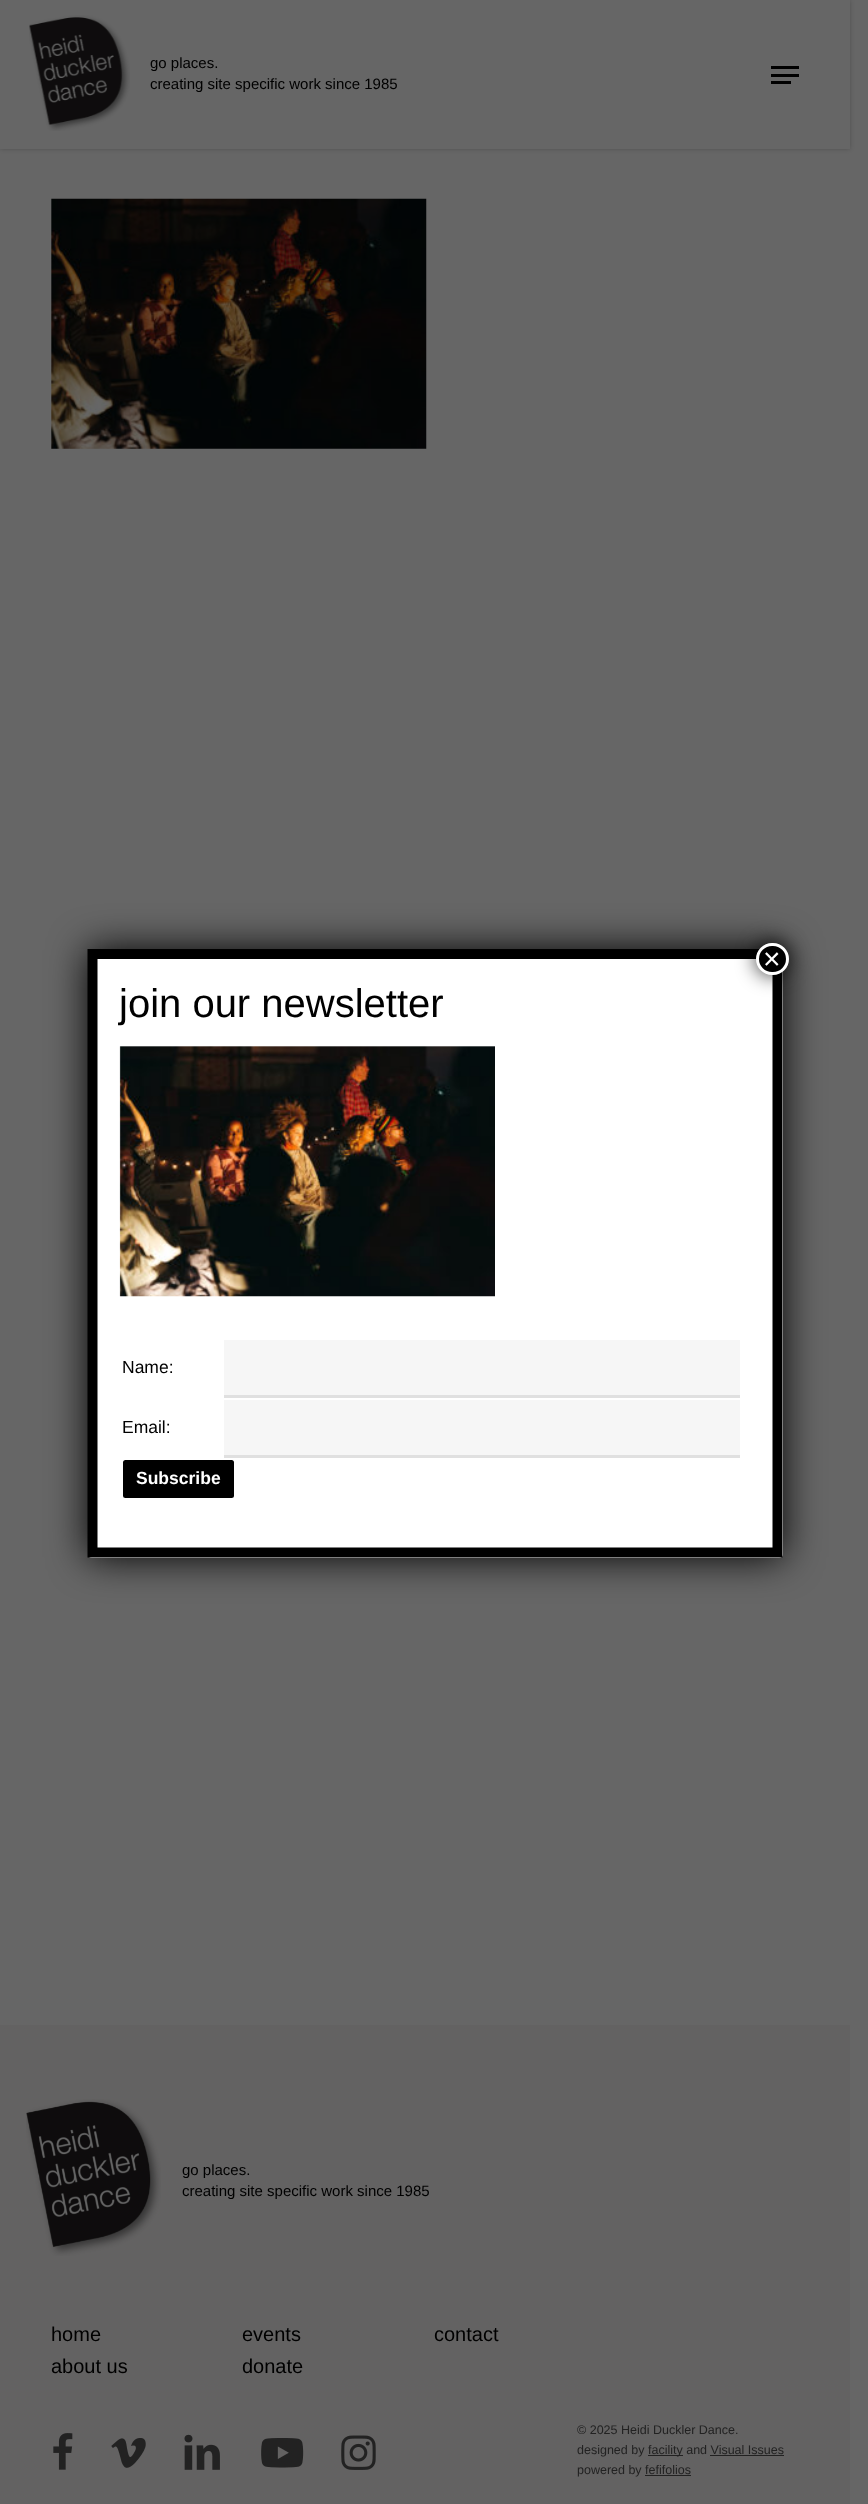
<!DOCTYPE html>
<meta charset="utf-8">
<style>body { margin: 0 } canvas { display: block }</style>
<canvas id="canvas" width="868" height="2504"></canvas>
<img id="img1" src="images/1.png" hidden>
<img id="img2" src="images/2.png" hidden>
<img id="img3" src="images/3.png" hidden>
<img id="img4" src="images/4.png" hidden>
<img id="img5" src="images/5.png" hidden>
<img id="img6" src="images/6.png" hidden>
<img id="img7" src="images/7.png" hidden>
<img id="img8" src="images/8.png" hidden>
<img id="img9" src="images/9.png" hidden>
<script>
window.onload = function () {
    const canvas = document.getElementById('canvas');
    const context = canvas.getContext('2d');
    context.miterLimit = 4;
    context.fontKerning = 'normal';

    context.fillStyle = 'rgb(102, 102, 102)';
    context.fillRect(0, 0, 868, 2504);
    context.fillStyle = 'rgba(0, 0, 0, 0.22)';
    context.filter = 'blur(2px)';
    context.beginPath();
    context.rect(0, 0, 850, 149);
    context.fill();
    context.filter = 'none';
    context.fillStyle = 'rgb(102, 102, 102)';
    context.fillRect(0, 0, 850, 149);
    context.drawImage(document.getElementById('img1'), 29, 15, 101, 116);
    context.fillStyle = 'rgb(0, 0, 0)';
    context.fillRect(771, 66, 28, 3);
    context.fillRect(771, 81, 20, 3);
    context.fillRect(771, 74, 28, 3);
    context.drawImage(document.getElementById('img2'), 51, 198, 376, 251);
    context.fillStyle = 'rgb(99, 98, 98)';
    context.fillRect(0, 2025, 850, 479);
    context.drawImage(document.getElementById('img3'), 26, 2099, 135, 157);
    context.drawImage(document.getElementById('img4'), 53, 2433, 20, 37);
    context.drawImage(document.getElementById('img5'), 111, 2438, 35, 30);
    context.drawImage(document.getElementById('img6'), 184, 2434, 36, 36);
    context.drawImage(document.getElementById('img7'), 261, 2438, 43, 30);
    context.drawImage(document.getElementById('img8'), 341, 2435, 35, 35);
    context.fillStyle = 'rgb(34, 34, 34)';
    context.fillRect(648, 2455, 35, 1);
    context.fillRect(710, 2455, 74, 1);
    context.fillRect(645, 2475, 46, 1);
    context.fillStyle = 'rgb(2, 2, 2)';
    context.filter = 'blur(19px)';
    context.beginPath();
    context.roundRect(88, 949, 695, 609, 4);
    context.fill();
    context.filter = 'none';
    context.fillStyle = 'rgb(255, 255, 255)';
    context.beginPath();
    context.roundRect(88, 949, 695, 609, 4);
    context.fill();
    context.beginPath();
    context.moveTo(92.5, 954);
    context.lineTo(777.5, 954);
    context.lineTo(777.5, 1552.5);
    context.lineTo(92.5, 1552.5);
    context.closePath();
    context.strokeStyle = 'rgb(0, 0, 0)';
    context.lineWidth = 10;
    context.stroke();
    context.fillStyle = 'rgba(2, 2, 2, 0.75)';
    context.filter = 'blur(9.5px)';
    context.beginPath();
    context.roundRect(755, 941, 35, 35, 17.5);
    context.fill();
    context.filter = 'none';
    context.fillStyle = 'rgb(0, 0, 0)';
    context.beginPath();
    context.roundRect(757.5, 944.5, 30, 29, 14.5);
    context.fill();
    context.strokeStyle = 'rgb(255, 255, 255)';
    context.lineWidth = 3;
    context.stroke();
    context.drawImage(document.getElementById('img9'), 119, 1046, 376, 251);
    context.fillStyle = 'rgb(246, 246, 246)';
    context.fillRect(224, 1340, 516, 55);
    context.fillStyle = 'rgb(224, 224, 224)';
    context.fillRect(224, 1395, 516, 3);
    context.fillStyle = 'rgb(246, 246, 246)';
    context.fillRect(224, 1400, 516, 55);
    context.fillStyle = 'rgb(224, 224, 224)';
    context.fillRect(224, 1455, 516, 3);
    context.fillStyle = 'rgb(0, 0, 0)';
    context.beginPath();
    context.roundRect(123, 1460, 111, 38, 2.5);
    context.fill();
    context.font = '15px Liberation Sans';
    context.fillText('go places.', 150, 68);
    context.fillText('creating site specific work since 1985', 150, 89);
    context.fillText('go places.', 182, 2175);
    context.fillText('creating site specific work since 1985', 182, 2196);
    context.font = '20px Liberation Sans';
    context.fillText('home', 51, 2341);
    context.fillText('events', 242, 2341);
    context.fillText('contact', 434, 2341);
    context.fillText('about us', 51, 2373);
    context.fillText('donate', 242, 2373);
    context.font = '12.5px Liberation Sans';
    context.fillStyle = 'rgb(34, 34, 34)';
    context.fillText('© 2025 Heidi Duckler Dance.', 577, 2434);
    context.fillText('designed by', 577, 2454);
    context.fillText('facility and Visual Issues', 648, 2454);
    context.fillText('powered by fefifolios', 577, 2474);
    context.font = '30px Liberation Sans';
    context.fillStyle = 'rgb(255, 255, 255)';
    context.fillText('×', 763, 969);
    context.font = '40px Liberation Sans';
    context.fillStyle = 'rgb(0, 0, 0)';
    context.fillText('join our newsletter', 119, 1017);
    context.font = '17.5px Liberation Sans';
    context.fillText('Name:', 122, 1373);
    context.fillText('Email:', 122, 1433);
    context.font = 'bold 17.5px Liberation Sans';
    context.fillStyle = 'rgb(255, 255, 255)';
    context.fillText('Subscribe', 136, 1484);
};
</script>
